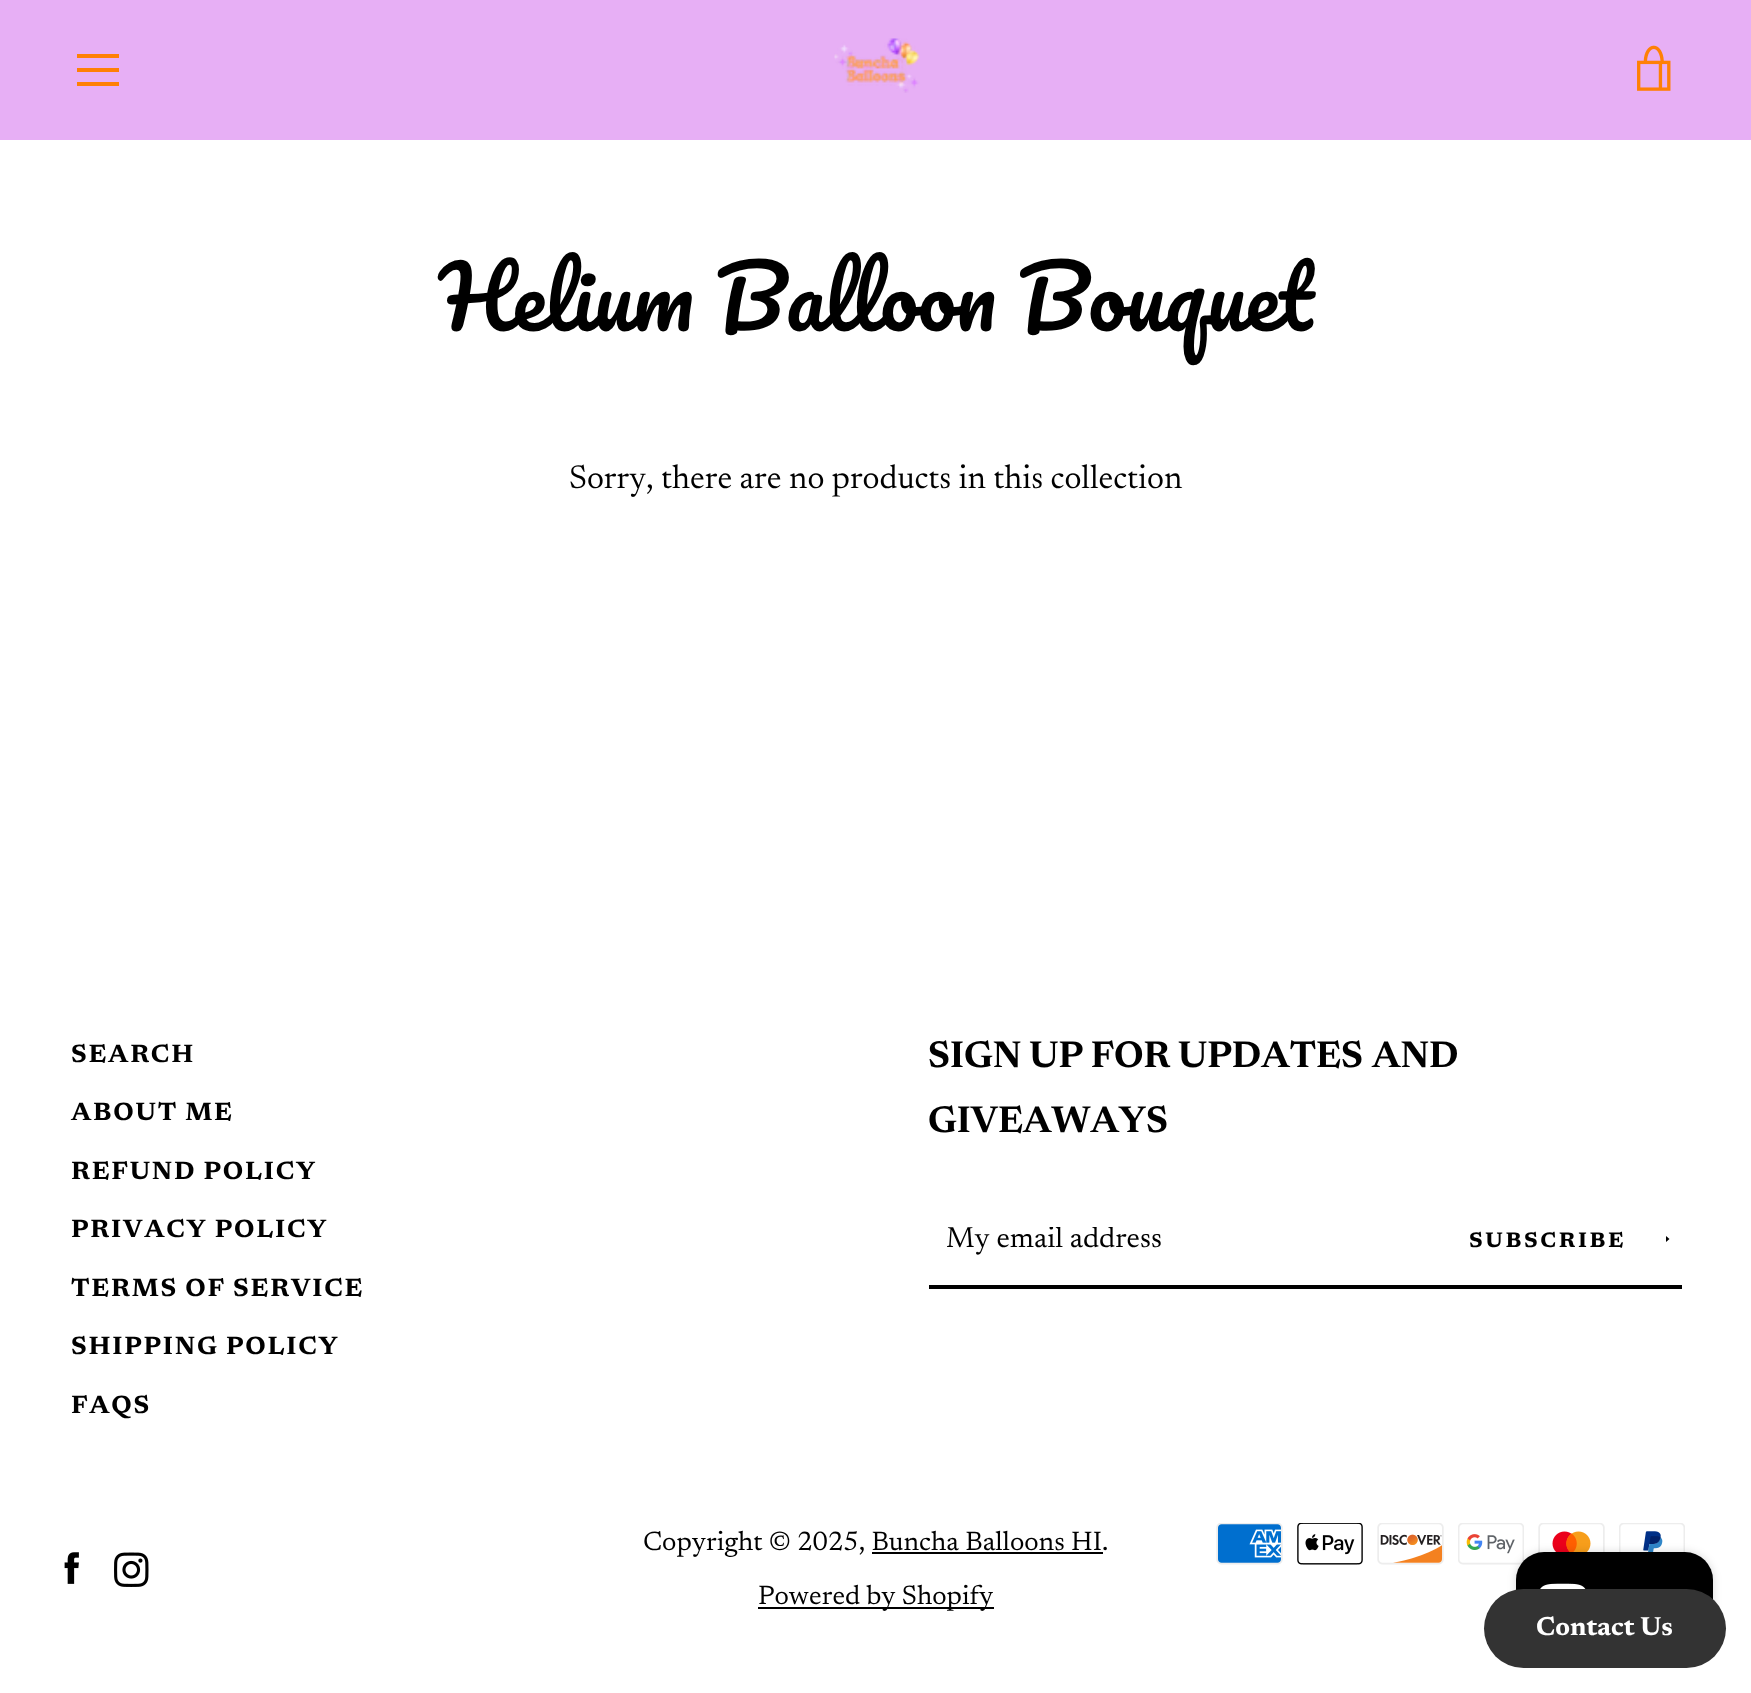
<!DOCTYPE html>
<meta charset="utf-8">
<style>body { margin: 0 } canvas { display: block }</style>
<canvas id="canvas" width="1751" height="1693"></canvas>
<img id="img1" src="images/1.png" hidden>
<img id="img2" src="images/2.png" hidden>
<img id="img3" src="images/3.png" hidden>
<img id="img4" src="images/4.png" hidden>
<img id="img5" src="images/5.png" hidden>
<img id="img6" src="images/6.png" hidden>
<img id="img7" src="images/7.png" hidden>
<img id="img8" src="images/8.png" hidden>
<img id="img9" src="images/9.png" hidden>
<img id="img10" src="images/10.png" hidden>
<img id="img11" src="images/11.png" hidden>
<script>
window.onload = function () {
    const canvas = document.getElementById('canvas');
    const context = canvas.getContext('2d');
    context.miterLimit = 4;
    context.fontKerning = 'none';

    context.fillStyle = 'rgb(255, 255, 255)';
    context.fillRect(0, 0, 1751, 1693);
    context.fillStyle = 'rgb(231, 175, 245)';
    context.fillRect(0, 0, 1751, 140);
    context.fillStyle = 'rgb(255, 128, 5)';
    context.fillRect(77, 54, 42, 4);
    context.fillRect(77, 68, 42, 4);
    context.fillRect(77, 82, 42, 4);
    context.drawImage(document.getElementById('img1'), 834, 38, 86, 55);
    context.drawImage(document.getElementById('img2'), 1637, 45, 34, 46);
    context.fillStyle = 'rgb(0, 0, 0)';
    context.fillRect(929, 1285, 753, 4);
    context.beginPath();
    context.moveTo(1669.5, 1239);
    context.lineTo(1666, 1242);
    context.lineTo(1666, 1236);
    context.closePath();
    context.fill();
    context.drawImage(document.getElementById('img3'), 64, 1552, 15, 32);
    context.drawImage(document.getElementById('img4'), 114, 1552, 35, 35);
    context.fillRect(872, 1552, 231, 2);
    context.fillRect(758, 1607, 236, 2);
    context.drawImage(document.getElementById('img5'), 1216, 1523, 67, 42);
    context.drawImage(document.getElementById('img6'), 1297, 1523, 66, 42);
    context.drawImage(document.getElementById('img7'), 1377, 1523, 67, 42);
    context.drawImage(document.getElementById('img8'), 1458, 1523, 66, 42);
    context.drawImage(document.getElementById('img9'), 1538, 1523, 67, 30);
    context.drawImage(document.getElementById('img10'), 1619, 1523, 66, 29);
    context.fillStyle = 'rgba(0, 0, 0, 0.15)';
    context.filter = 'blur(4.5px)';
    context.beginPath();
    context.roundRect(1516, 1552, 197, 105, 28);
    context.fill();
    context.filter = 'none';
    context.fillStyle = 'rgb(0, 0, 0)';
    context.beginPath();
    context.roundRect(1516, 1552, 197, 105, 28);
    context.fill();
    context.drawImage(document.getElementById('img11'), 1540, 1583, 46, 6);
    context.fillStyle = 'rgb(51, 51, 51)';
    context.beginPath();
    context.roundRect(1484, 1589, 242, 79, 39.5);
    context.fill();
    context.font = '84px Pacifico';
    context.fillStyle = 'rgb(0, 0, 0)';
    context.fillText('Helium Balloon Bouquet', 439, 331);
    context.font = '33.6px "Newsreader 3"';
    context.fillText('Sorry, there are no products in this collection', 569, 488);
    context.letterSpacing = '1.75px';
    context.font = 'bold 25.25px Newsreader';
    context.fillText('SEARCH', 71, 1062);
    context.fillText('ABOUT ME', 71, 1120);
    context.fillText('REFUND POLICY', 71, 1179);
    context.fillText('PRIVACY POLICY', 71, 1237);
    context.fillText('TERMS OF SERVICE', 71, 1296);
    context.fillText('SHIPPING POLICY', 71, 1354);
    context.fillText('FAQS', 71, 1413);
    context.letterSpacing = '0px';
    context.font = 'bold 37.75px "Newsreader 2"';
    context.fillText('SIGN UP FOR UPDATES', 928, 1067);
    context.fillText('AND', 1372, 1067);
    context.fillText('GIVEAWAYS', 928, 1132);
    context.save();
    context.beginPath();
    context.rect(947, 1227, 430, 28);
    context.clip();
    context.font = '29.5px "Newsreader 2"';
    context.fillText('My email address', 946, 1247);
    context.restore();
    context.letterSpacing = '2.6px';
    context.font = 'bold 21px "Newsreader 3"';
    context.fillText('SUBSCRIBE', 1469, 1247);
    context.letterSpacing = '0px';
    context.font = '26.9px Newsreader';
    context.fillText('Copyright © 2025, Buncha Balloons HI.', 643, 1550);
    context.fillText('Powered by Shopify', 758, 1604);
    context.font = 'bold 26.25px "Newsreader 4"';
    context.fillStyle = 'rgb(255, 255, 255)';
    context.fillText('Contact Us', 1536, 1635);
};
</script>
